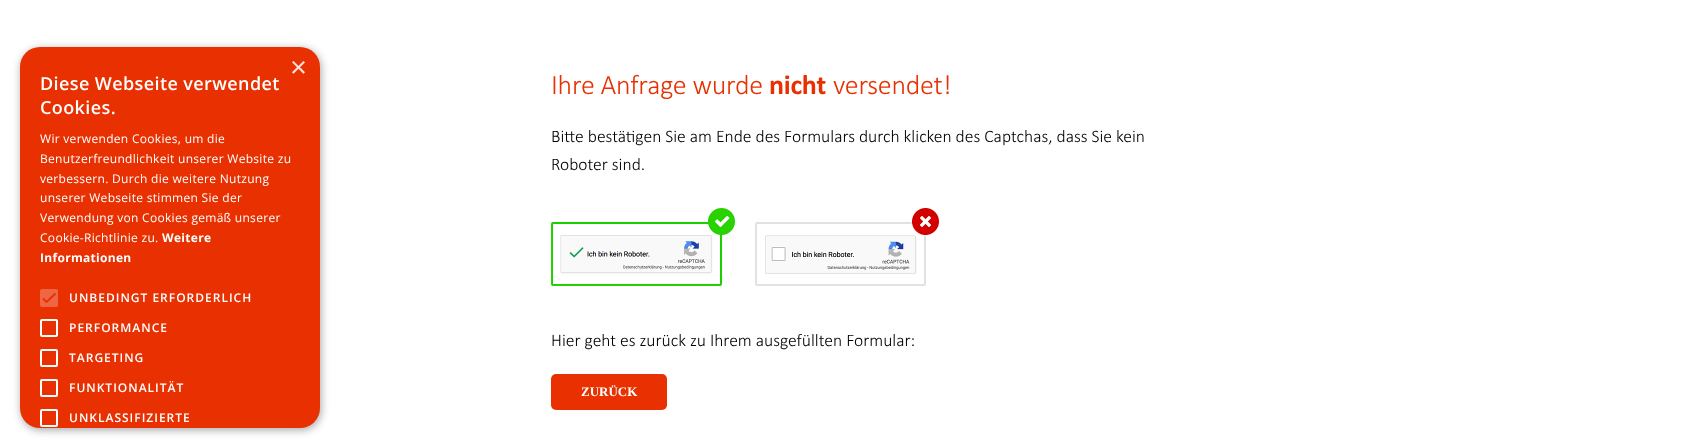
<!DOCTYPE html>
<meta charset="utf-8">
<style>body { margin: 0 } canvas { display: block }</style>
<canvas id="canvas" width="1691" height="448"></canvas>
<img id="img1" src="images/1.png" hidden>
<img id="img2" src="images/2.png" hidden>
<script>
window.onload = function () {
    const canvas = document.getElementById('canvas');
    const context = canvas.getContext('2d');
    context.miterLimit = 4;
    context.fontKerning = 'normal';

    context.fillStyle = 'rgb(255, 255, 255)';
    context.fillRect(0, 0, 1691, 448);
    context.fillStyle = 'rgba(0, 0, 0, 0.35)';
    context.filter = 'blur(4px)';
    context.beginPath();
    context.roundRect(21, 49, 300, 381, 20);
    context.fill();
    context.filter = 'none';
    context.fillStyle = 'rgb(232, 48, 1)';
    context.beginPath();
    context.roundRect(20, 47, 300, 381, 20);
    context.fill();
    context.fillStyle = 'rgb(238, 102, 67)';
    context.beginPath();
    context.roundRect(40, 289, 18, 18, 2);
    context.fill();
    context.beginPath();
    context.moveTo(43, 298.5);
    context.lineTo(46.5, 302);
    context.lineTo(55.5, 293.5);
    context.strokeStyle = 'rgb(232, 48, 1)';
    context.lineWidth = 1.8;
    context.stroke();
    context.beginPath();
    context.roundRect(41, 320, 16, 16, 1);
    context.strokeStyle = 'rgb(255, 255, 255)';
    context.lineWidth = 2;
    context.stroke();
    context.beginPath();
    context.roundRect(41, 350, 16, 16, 1);
    context.stroke();
    context.beginPath();
    context.roundRect(41, 380, 16, 16, 1);
    context.stroke();
    context.beginPath();
    context.roundRect(41, 410, 16, 16, 1);
    context.stroke();
    context.drawImage(document.getElementById('img1'), 551, 208, 184, 78);
    context.drawImage(document.getElementById('img2'), 755, 208, 184, 78);
    context.fillStyle = 'rgb(232, 48, 1)';
    context.beginPath();
    context.roundRect(551, 374, 116, 36, 5);
    context.fill();
    context.font = '29px Liberation Sans';
    context.fillStyle = 'rgb(252, 224, 217)';
    context.fillText('×', 290, 77);
    context.letterSpacing = '0.4px';
    context.font = '600 18px Open Sans';
    context.fillStyle = 'rgb(255, 255, 255)';
    context.fillText('Diese Webseite verwendet', 40, 90);
    context.fillText('Cookies.', 40, 114);
    context.letterSpacing = '0.3px';
    context.font = '12px Open Sans';
    context.fillText('Wir verwenden Cookies, um die', 40, 143);
    context.fillText('Benutzerfreundlichkeit unserer Website zu', 40, 163);
    context.fillText('verbessern. Durch die weitere Nutzung', 40, 183);
    context.fillText('unserer Webseite stimmen Sie der', 40, 202);
    context.fillText('Verwendung von Cookies gemäß unserer', 40, 222);
    context.fillText('Cookie-Richtlinie zu.', 40, 242);
    context.font = 'bold 12px Open Sans';
    context.fillText('Weitere', 162, 242);
    context.fillText('Informationen', 40, 262);
    context.letterSpacing = '1px';
    context.font = '600 12px Open Sans';
    context.fillText('UNBEDINGT ERFORDERLICH', 69, 302);
    context.fillText('PERFORMANCE', 69, 332);
    context.fillText('TARGETING', 69, 362);
    context.fillText('FUNKTIONALITÄT', 69, 392);
    context.fillText('UNKLASSIFIZIERTE', 69, 422);
    context.letterSpacing = '-0.25px';
    context.font = '300 28px Calibri';
    context.fillStyle = 'rgb(232, 48, 1)';
    context.fillText('Ihre Anfrage wurde', 551, 94);
    context.font = 'bold 28px Calibri';
    context.fillText('nicht', 769, 94);
    context.font = '300 28px Calibri';
    context.fillText('versendet!', 833, 94);
    context.letterSpacing = '0px';
    context.font = '300 17.6px Calibri';
    context.fillStyle = 'rgb(0, 0, 0)';
    context.fillText('Bitte bestätigen Sie am Ende des Formulars durch klicken des Captchas, dass Sie kein', 551, 142);
    context.fillText('Roboter sind.', 551, 170);
    context.fillText('Hier geht es zurück zu Ihrem ausgefüllten Formular:', 551, 346);
    context.font = 'bold 13px Liberation Serif';
    context.fillStyle = 'rgb(255, 255, 255)';
    context.fillText('ZURÜCK', 581, 396);
};
</script>
